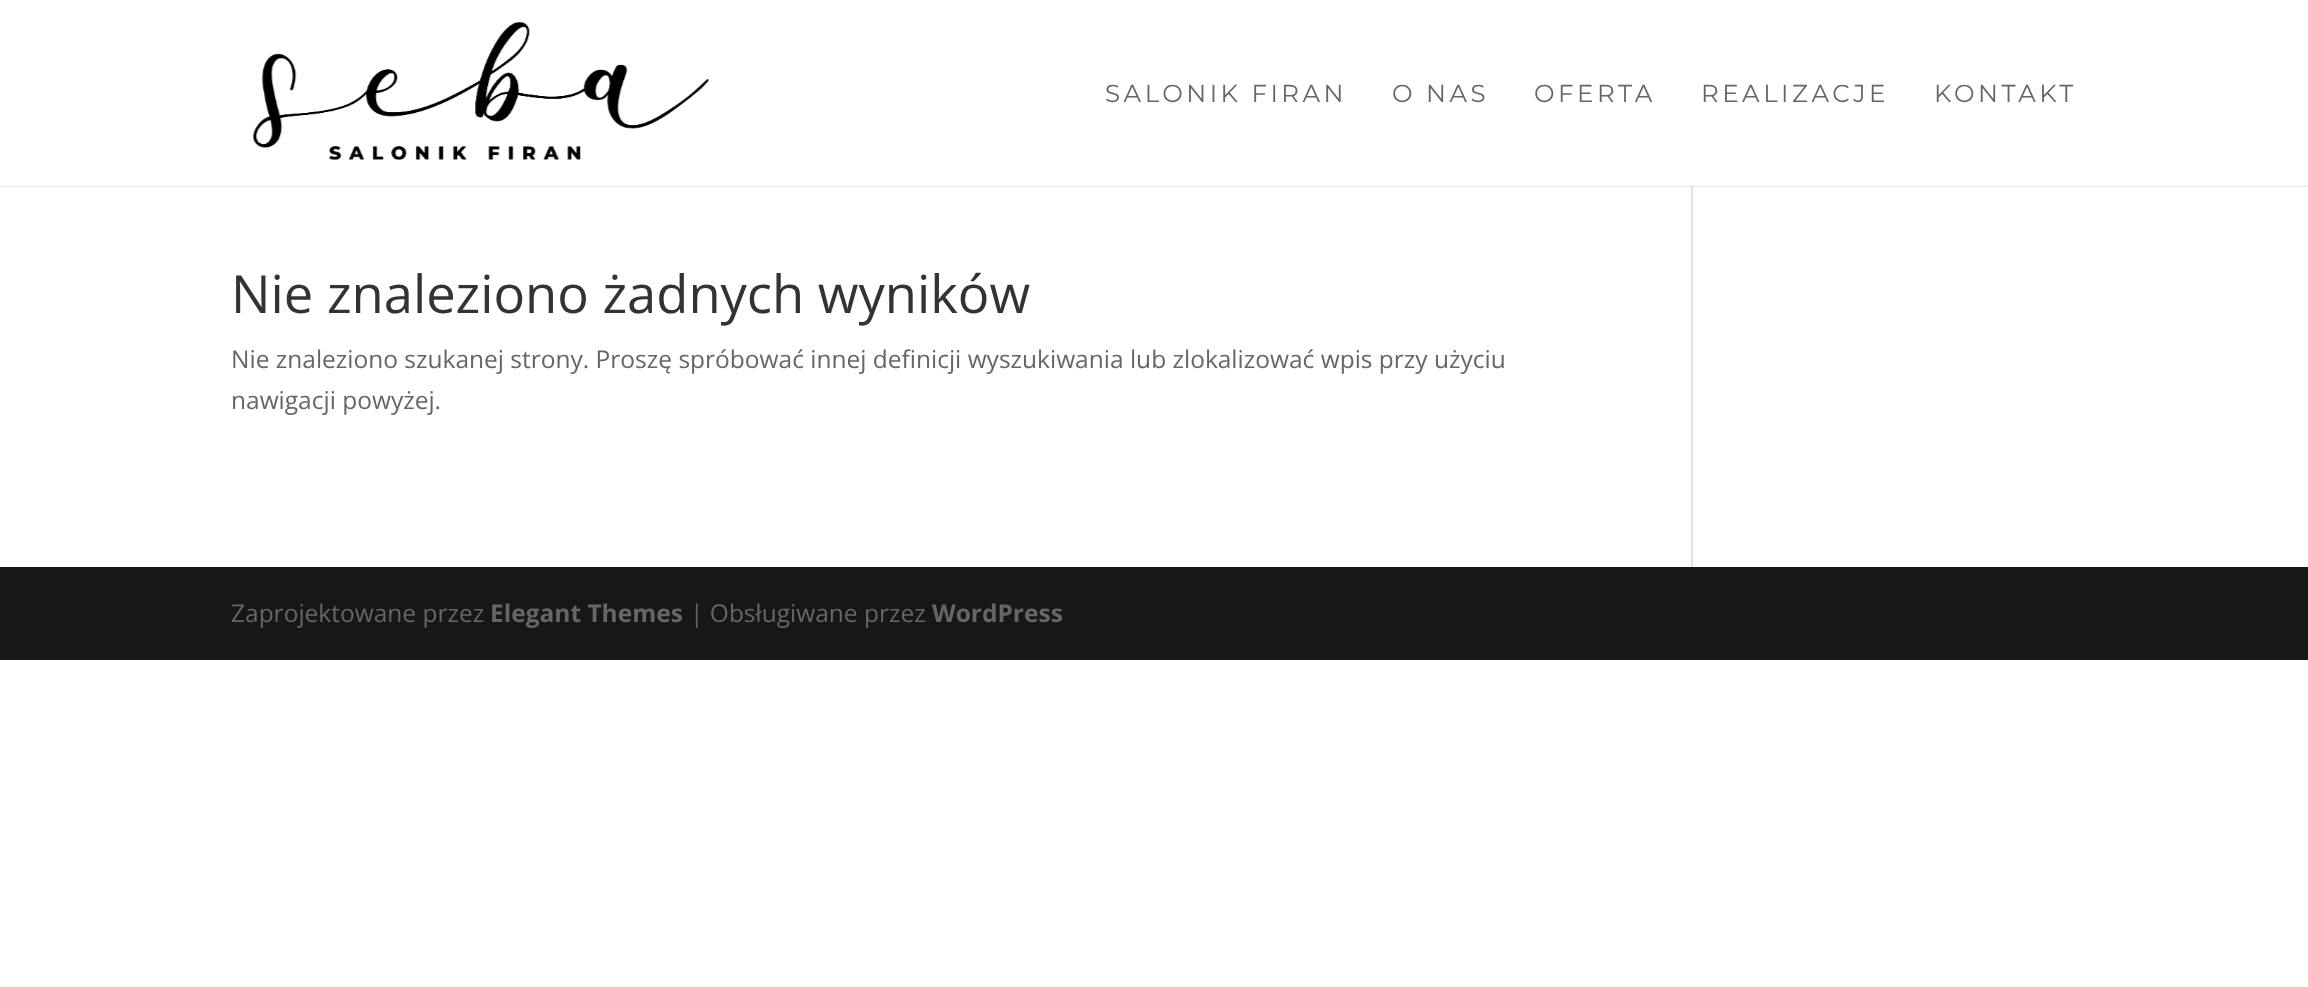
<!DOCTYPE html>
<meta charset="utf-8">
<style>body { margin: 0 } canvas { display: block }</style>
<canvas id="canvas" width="2308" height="987"></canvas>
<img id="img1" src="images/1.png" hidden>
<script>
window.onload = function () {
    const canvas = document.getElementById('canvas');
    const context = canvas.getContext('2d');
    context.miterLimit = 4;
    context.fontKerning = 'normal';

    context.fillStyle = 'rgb(255, 255, 255)';
    context.fillRect(0, 0, 2308, 987);
    context.fillStyle = 'rgb(230, 230, 230)';
    context.fillRect(0, 186, 2308, 1);
    context.drawImage(document.getElementById('img1'), 253, 22, 457, 138);
    context.fillStyle = 'rgb(226, 226, 226)';
    context.fillRect(1691, 187, 2, 380);
    context.fillStyle = 'rgb(203, 203, 203)';
    context.fillRect(1691, 186, 2, 1);
    context.fillStyle = 'rgb(23, 23, 23)';
    context.fillRect(0, 567, 2308, 93);
    context.letterSpacing = '3.5px';
    context.font = '100 24.5px Montserrat';
    context.fillStyle = 'rgb(102, 102, 102)';
    context.fillText('SALONIK FIRAN', 1105, 102);
    context.fillText('O NAS', 1392, 102);
    context.fillText('OFERTA', 1534, 102);
    context.fillText('REALIZACJE', 1701, 102);
    context.fillText('KONTAKT', 1934, 102);
    context.letterSpacing = '0px';
    context.font = '52.5px Open Sans';
    context.fillStyle = 'rgb(51, 51, 51)';
    context.fillText('Nie znaleziono żadnych wyników', 231, 313);
    context.font = '24.5px Open Sans';
    context.fillStyle = 'rgb(102, 102, 102)';
    context.fillText('Nie znaleziono szukanej strony. Proszę spróbować innej definicji wyszukiwania lub zlokalizować wpis przy użyciu', 231, 368);
    context.fillText('nawigacji powyżej.', 231, 409);
    context.fillText('Zaprojektowane przez', 231, 622);
    context.font = 'bold 24.5px Open Sans';
    context.fillText('Elegant Themes', 490, 622);
    context.font = '24.5px Open Sans';
    context.fillText('| Obsługiwane przez', 690, 622);
    context.font = 'bold 24.5px Open Sans';
    context.fillText('WordPress', 932, 622);
};
</script>
